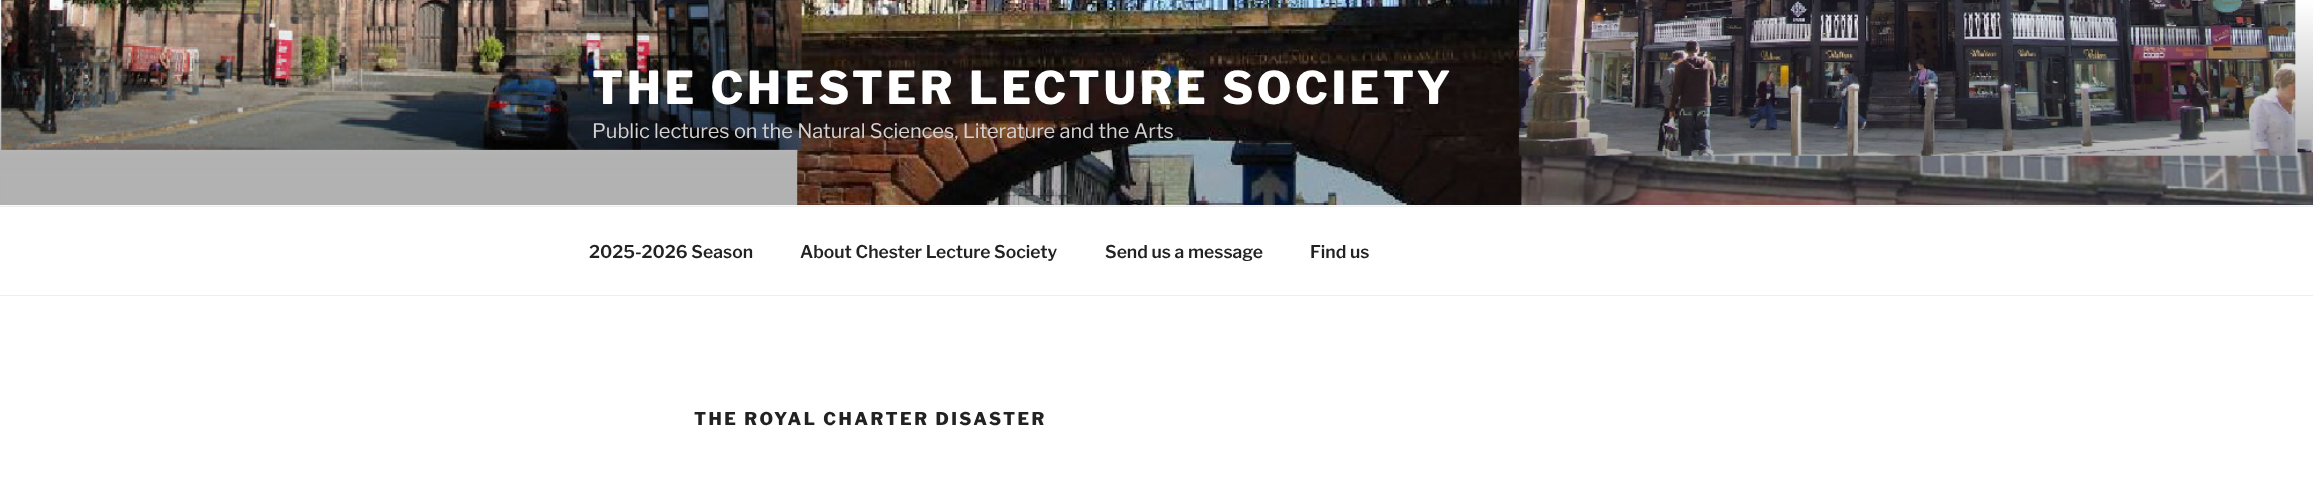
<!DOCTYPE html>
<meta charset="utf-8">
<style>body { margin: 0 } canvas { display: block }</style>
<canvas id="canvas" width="2313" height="488"></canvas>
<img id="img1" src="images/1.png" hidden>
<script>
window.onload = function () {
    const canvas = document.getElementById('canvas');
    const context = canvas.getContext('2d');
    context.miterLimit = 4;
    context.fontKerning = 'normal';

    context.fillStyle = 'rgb(255, 255, 255)';
    context.fillRect(0, 0, 2313, 488);
    context.fillStyle = 'rgb(250, 250, 250)';
    context.fillRect(0, 205, 2313, 1);
    context.drawImage(document.getElementById('img1'), 0, 0, 2313, 205);
    context.fillStyle = 'rgb(238, 238, 238)';
    context.fillRect(0, 206, 2313, 1);
    context.fillRect(0, 295, 2313, 1);
    context.letterSpacing = '3.6px';
    context.font = '800 45px Libre Franklin';
    context.fillStyle = 'rgb(255, 255, 255)';
    context.fillText('THE CHESTER LECTURE SOCIETY', 592, 104);
    context.letterSpacing = '0px';
    context.font = '20px Libre Franklin';
    context.fillStyle = 'rgb(213, 210, 210)';
    context.fillText('Public lectures on the Natural Sciences, Literature and the Arts', 592, 138);
    context.font = '600 17.5px Libre Franklin';
    context.fillStyle = 'rgb(34, 34, 34)';
    context.fillText('2025-2026 Season', 589, 258);
    context.fillText('About Chester Lecture Society', 800, 258);
    context.fillText('Send us a message', 1105, 258);
    context.fillText('Find us', 1310, 258);
    context.letterSpacing = '2.45px';
    context.font = '800 17.5px Libre Franklin';
    context.fillText('THE ROYAL CHARTER DISASTER', 694, 425);
};
</script>
